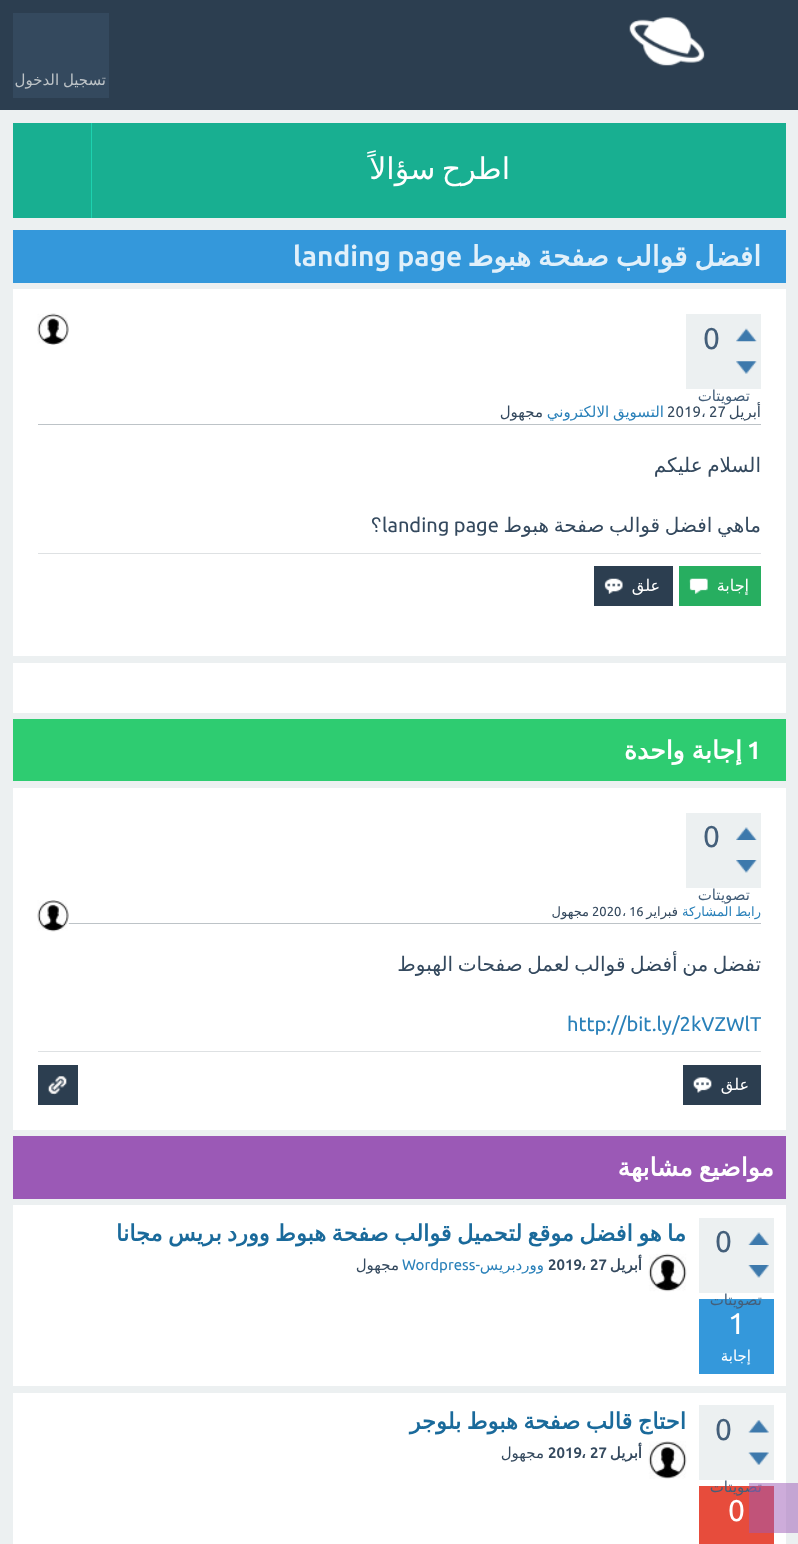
<!DOCTYPE html>
<meta charset="utf-8">
<style>body { margin: 0 } canvas { display: block }</style>
<canvas id="canvas" width="798" height="1544"></canvas>
<img id="img1" src="images/1.png" hidden>
<img id="img2" src="images/2.png" hidden>
<img id="img3" src="images/3.png" hidden>
<img id="img4" src="images/4.png" hidden>
<img id="img5" src="images/5.png" hidden>
<img id="img6" src="images/6.png" hidden>
<img id="img7" src="images/7.png" hidden>
<img id="img8" src="images/8.png" hidden>
<img id="img9" src="images/9.png" hidden>
<img id="img10" src="images/10.png" hidden>
<img id="img11" src="images/11.png" hidden>
<img id="img12" src="images/12.png" hidden>
<img id="img13" src="images/13.png" hidden>
<img id="img14" src="images/14.png" hidden>
<img id="img15" src="images/15.png" hidden>
<img id="img16" src="images/16.png" hidden>
<img id="img17" src="images/17.png" hidden>
<script>
window.onload = function () {
    const canvas = document.getElementById('canvas');
    const context = canvas.getContext('2d');
    context.miterLimit = 4;
    context.fontKerning = 'normal';

    context.fillStyle = 'rgb(236, 240, 241)';
    context.fillRect(0, 0, 798, 1544);
    context.fillStyle = 'rgb(44, 62, 80)';
    context.fillRect(0, 0, 798, 110);
    context.drawImage(document.getElementById('img1'), 629, 17, 76, 49);
    context.fillStyle = 'rgb(52, 73, 94)';
    context.fillRect(13, 13, 96, 85);
    context.fillStyle = 'rgb(24, 175, 145)';
    context.fillRect(13, 123, 773, 95);
    context.fillStyle = 'rgb(29, 210, 175)';
    context.fillRect(91, 123, 1, 95);
    context.fillStyle = 'rgb(52, 152, 219)';
    context.fillRect(13, 230, 773, 53);
    context.fillStyle = 'rgb(255, 255, 255)';
    context.fillRect(13, 289, 773, 367);
    context.fillStyle = 'rgb(236, 240, 241)';
    context.fillRect(686, 314, 75, 75);
    context.drawImage(document.getElementById('img2'), 736, 328, 21, 14);
    context.drawImage(document.getElementById('img3'), 736, 361, 21, 13);
    context.drawImage(document.getElementById('img4'), 37, 313, 32, 32);
    context.fillStyle = 'rgb(189, 195, 199)';
    context.fillRect(38, 424, 723, 1);
    context.fillStyle = 'rgb(222, 225, 227)';
    context.fillRect(38, 553, 723, 1);
    context.fillStyle = 'rgb(39, 174, 96)';
    context.fillRect(679, 566, 82, 40);
    context.drawImage(document.getElementById('img5'), 689, 578, 19, 16);
    context.fillStyle = 'rgb(44, 62, 80)';
    context.fillRect(594, 566, 79, 40);
    context.drawImage(document.getElementById('img6'), 604, 578, 19, 16);
    context.fillStyle = 'rgb(255, 255, 255)';
    context.fillRect(13, 663, 773, 50);
    context.fillStyle = 'rgb(46, 204, 113)';
    context.fillRect(13, 719, 773, 62);
    context.fillStyle = 'rgb(255, 255, 255)';
    context.fillRect(13, 788, 773, 342);
    context.fillStyle = 'rgb(236, 240, 241)';
    context.fillRect(686, 813, 75, 75);
    context.drawImage(document.getElementById('img7'), 736, 827, 21, 13);
    context.drawImage(document.getElementById('img8'), 736, 860, 21, 13);
    context.fillStyle = 'rgb(189, 195, 199)';
    context.fillRect(68, 923, 693, 1);
    context.drawImage(document.getElementById('img9'), 37, 900, 32, 32);
    context.fillStyle = 'rgb(222, 225, 227)';
    context.fillRect(38, 1051, 723, 1);
    context.fillStyle = 'rgb(44, 62, 80)';
    context.fillRect(683, 1065, 78, 40);
    context.drawImage(document.getElementById('img10'), 692, 1077, 20, 16);
    context.fillRect(38, 1065, 40, 40);
    context.drawImage(document.getElementById('img11'), 47, 1076, 20, 19);
    context.fillStyle = 'rgb(155, 89, 182)';
    context.fillRect(13, 1136, 773, 63);
    context.fillStyle = 'rgb(255, 255, 255)';
    context.fillRect(13, 1205, 773, 181);
    context.fillStyle = 'rgb(236, 240, 241)';
    context.fillRect(699, 1218, 75, 75);
    context.drawImage(document.getElementById('img12'), 748, 1232, 21, 13);
    context.drawImage(document.getElementById('img13'), 748, 1265, 21, 13);
    context.fillStyle = 'rgb(52, 152, 219)';
    context.fillRect(699, 1299, 75, 75);
    context.drawImage(document.getElementById('img14'), 648, 1253, 39, 39);
    context.fillStyle = 'rgb(255, 255, 255)';
    context.fillRect(13, 1393, 773, 151);
    context.fillStyle = 'rgb(236, 240, 241)';
    context.fillRect(699, 1405, 75, 75);
    context.drawImage(document.getElementById('img15'), 748, 1420, 21, 13);
    context.drawImage(document.getElementById('img16'), 748, 1452, 21, 13);
    context.fillStyle = 'rgb(231, 76, 60)';
    context.fillRect(699, 1486, 75, 58);
    context.drawImage(document.getElementById('img17'), 648, 1441, 39, 38);
    context.save();
    context.beginPath();
    context.rect(15, 68, 91, 27);
    context.clip();
    context.wordSpacing = '-1px';
    context.direction = 'rtl';
    context.font = '15px DejaVu Sans';
    context.fillStyle = 'rgb(189, 195, 199)';
    context.fillText('تسجيل الدخول', 106, 85);
    context.restore();
    context.wordSpacing = '-3px';
    context.direction = 'rtl';
    context.font = '30px DejaVu Sans';
    context.fillStyle = 'rgb(255, 255, 255)';
    context.fillText('اطرح سؤالاً', 510, 179);
    context.wordSpacing = '-2px';
    context.font = 'bold 28px DejaVu Sans';
    context.fillStyle = 'rgb(225, 240, 250)';
    context.fillText('افضل قوالب صفحة هبوط', 761, 266);
    context.wordSpacing = '0px';
    context.direction = 'ltr';
    context.font = 'bold 28px Ubuntu';
    context.fillText('landing page', 293, 266);
    context.font = '30px Ubuntu';
    context.fillStyle = 'rgb(68, 95, 122)';
    context.fillText('0', 703, 349);
    context.direction = 'rtl';
    context.font = '15px DejaVu Sans';
    context.fillText('تصويتات', 750, 401);
    context.fillStyle = 'rgb(52, 73, 94)';
    context.fillText('أبريل', 761, 417);
    context.direction = 'ltr';
    context.font = '15px Ubuntu';
    context.fillText('27', 709, 417);
    context.font = '15px DejaVu Sans';
    context.fillText('،', 701, 417);
    context.font = '15px Ubuntu';
    context.fillText('2019', 667, 417);
    context.wordSpacing = '-1px';
    context.direction = 'rtl';
    context.font = '15px DejaVu Sans';
    context.fillStyle = 'rgb(41, 128, 185)';
    context.fillText('التسويق الالكتروني', 664, 417);
    context.wordSpacing = '0px';
    context.fillStyle = 'rgb(52, 73, 94)';
    context.fillText('مجهول', 543, 417);
    context.wordSpacing = '-1.75px';
    context.font = '20px DejaVu Sans';
    context.fillText('السلام عليكم', 761, 472);
    context.fillText('ماهي افضل قوالب صفحة هبوط', 761, 532);
    context.wordSpacing = '0px';
    context.direction = 'ltr';
    context.font = '20px Ubuntu';
    context.fillText('landing page', 382, 532);
    context.direction = 'rtl';
    context.font = '20px FreeSans';
    context.fillText('؟', 382, 532);
    context.font = '16px DejaVu Sans';
    context.fillStyle = 'rgb(255, 255, 255)';
    context.fillText('إجابة', 749, 591);
    context.fillText('علق', 660, 591);
    context.direction = 'ltr';
    context.font = 'bold 25px Ubuntu';
    context.fillText('1', 747, 759);
    context.wordSpacing = '-1px';
    context.direction = 'rtl';
    context.font = 'bold 25px DejaVu Sans';
    context.fillText('إجابة واحدة', 742, 759);
    context.wordSpacing = '0px';
    context.direction = 'ltr';
    context.font = '30px Ubuntu';
    context.fillStyle = 'rgb(68, 95, 122)';
    context.fillText('0', 703, 847);
    context.direction = 'rtl';
    context.font = '15px DejaVu Sans';
    context.fillText('تصويتات', 750, 900);
    context.wordSpacing = '-1px';
    context.font = '13px DejaVu Sans';
    context.fillStyle = 'rgb(41, 128, 185)';
    context.fillText('رابط المشاركة', 761, 916);
    context.wordSpacing = '0px';
    context.fillStyle = 'rgb(52, 73, 94)';
    context.fillText('فبراير', 678, 916);
    context.direction = 'ltr';
    context.font = '13px Ubuntu';
    context.fillText('16', 629, 916);
    context.font = '13px DejaVu Sans';
    context.fillText('،', 622, 916);
    context.font = '13px Ubuntu';
    context.fillText('2020', 592, 916);
    context.direction = 'rtl';
    context.font = '13px DejaVu Sans';
    context.fillText('مجهول', 589, 916);
    context.wordSpacing = '-1.75px';
    context.font = '20px DejaVu Sans';
    context.fillText('تفضل من أفضل قوالب لعمل صفحات الهبوط', 761, 971);
    context.wordSpacing = '0px';
    context.direction = 'ltr';
    context.font = '20px Ubuntu';
    context.fillStyle = 'rgb(41, 128, 185)';
    context.fillText('http://bit.ly/2kVZWlT', 567, 1031);
    context.direction = 'rtl';
    context.font = '16px DejaVu Sans';
    context.fillStyle = 'rgb(255, 255, 255)';
    context.fillText('علق', 749, 1090);
    context.wordSpacing = '-2px';
    context.font = 'bold 25px DejaVu Sans';
    context.fillText('مواضيع مشابهة', 774, 1176);
    context.wordSpacing = '0px';
    context.direction = 'ltr';
    context.font = '30px Ubuntu';
    context.fillStyle = 'rgb(68, 95, 122)';
    context.fillText('0', 715, 1252);
    context.direction = 'rtl';
    context.font = '15px DejaVu Sans';
    context.fillText('تصويتات', 762, 1305);
    context.direction = 'ltr';
    context.font = '30px Ubuntu';
    context.fillStyle = 'rgb(255, 255, 255)';
    context.fillText('1', 728, 1334);
    context.direction = 'rtl';
    context.font = '15px DejaVu Sans';
    context.fillText('إجابة', 751, 1361);
    context.wordSpacing = '-1.75px';
    context.font = 'bold 22.5px DejaVu Sans';
    context.fillStyle = 'rgb(26, 106, 155)';
    context.fillText('ما هو افضل موقع لتحميل قوالب صفحة هبوط وورد بريس مجانا', 686, 1241);
    context.wordSpacing = '0px';
    context.font = 'bold 15px DejaVu Sans';
    context.fillStyle = 'rgb(52, 73, 94)';
    context.fillText('أبريل', 642, 1270);
    context.direction = 'ltr';
    context.font = 'bold 15px Ubuntu';
    context.fillText('27', 590, 1270);
    context.fillText('2019', 548, 1270);
    context.direction = 'rtl';
    context.font = '15px DejaVu Sans';
    context.fillStyle = 'rgb(41, 128, 185)';
    context.fillText('ووردبريس', 544, 1270);
    context.font = '15px Ubuntu';
    context.fillText('-', 480, 1270);
    context.direction = 'ltr';
    context.fillText('Wordpress', 402, 1270);
    context.direction = 'rtl';
    context.font = '15px DejaVu Sans';
    context.fillStyle = 'rgb(52, 73, 94)';
    context.fillText('مجهول', 399, 1270);
    context.direction = 'ltr';
    context.font = 'bold 15px DejaVu Sans';
    context.fillText('،', 581, 1270);
    context.font = '30px Ubuntu';
    context.fillStyle = 'rgb(68, 95, 122)';
    context.fillText('0', 715, 1440);
    context.direction = 'rtl';
    context.font = '15px DejaVu Sans';
    context.fillText('تصويتات', 762, 1492);
    context.direction = 'ltr';
    context.font = '30px Ubuntu';
    context.fillStyle = 'rgb(255, 255, 255)';
    context.fillText('0', 728, 1521);
    context.wordSpacing = '-1.75px';
    context.direction = 'rtl';
    context.font = 'bold 22.5px DejaVu Sans';
    context.fillStyle = 'rgb(26, 106, 155)';
    context.fillText('احتاج قالب صفحة هبوط بلوجر', 686, 1429);
    context.wordSpacing = '0px';
    context.font = 'bold 15px DejaVu Sans';
    context.fillStyle = 'rgb(52, 73, 94)';
    context.fillText('أبريل', 642, 1458);
    context.direction = 'ltr';
    context.font = 'bold 15px Ubuntu';
    context.fillText('27', 590, 1458);
    context.font = 'bold 15px DejaVu Sans';
    context.fillText('،', 581, 1458);
    context.font = 'bold 15px Ubuntu';
    context.fillText('2019', 548, 1458);
    context.direction = 'rtl';
    context.font = '15px DejaVu Sans';
    context.fillText('مجهول', 544, 1458);
    context.fillStyle = 'rgba(155, 89, 182, 0.5)';
    context.fillRect(749, 1483, 49, 50);
};
</script>
